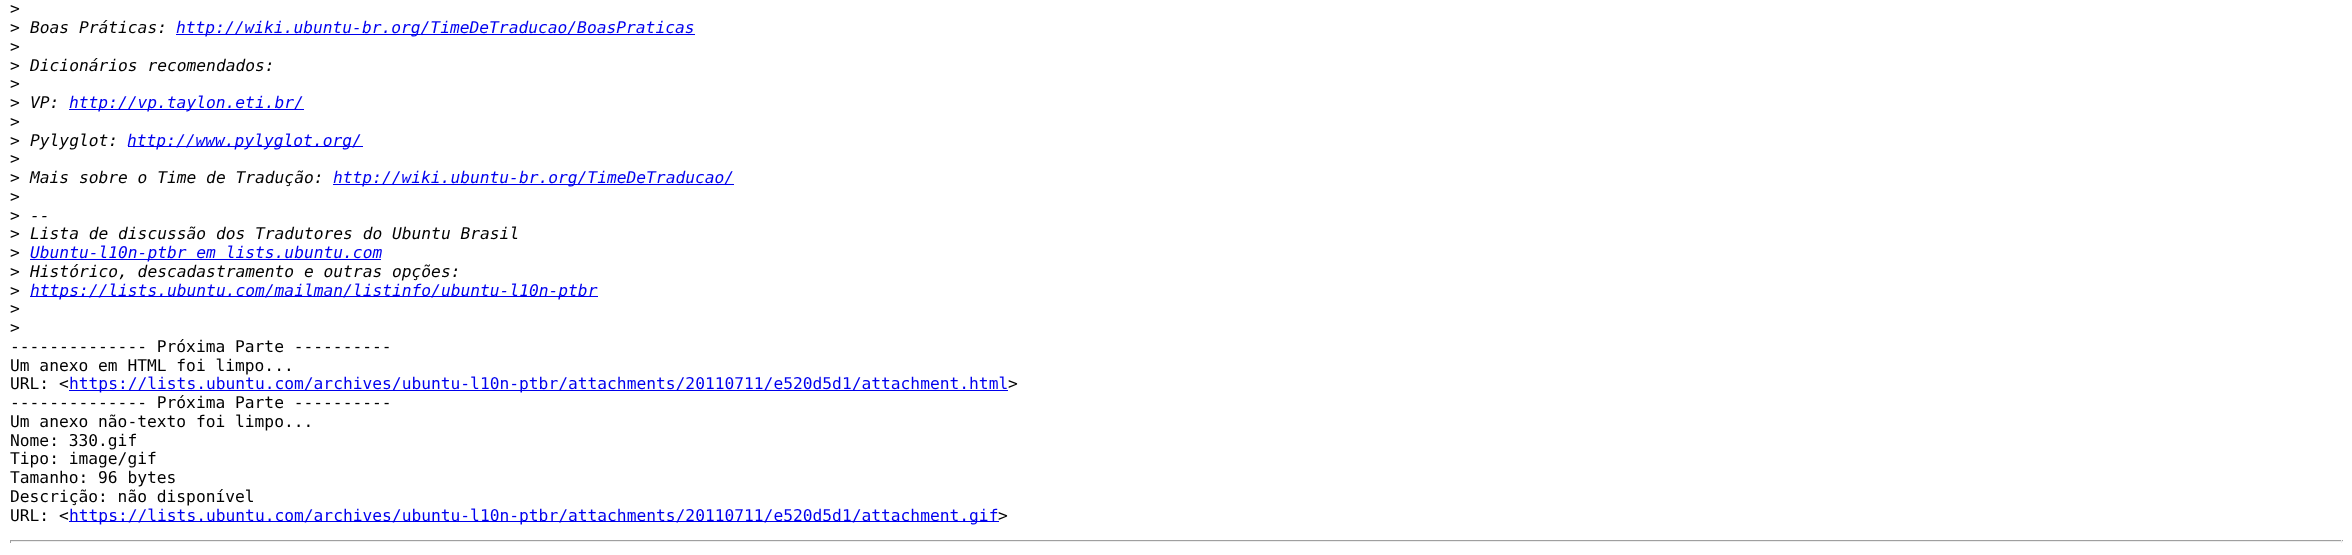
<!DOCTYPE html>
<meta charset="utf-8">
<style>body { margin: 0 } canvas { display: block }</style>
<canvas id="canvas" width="2352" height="555"></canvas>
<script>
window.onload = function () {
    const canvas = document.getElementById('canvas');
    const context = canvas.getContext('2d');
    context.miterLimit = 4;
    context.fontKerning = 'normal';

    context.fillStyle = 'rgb(255, 255, 255)';
    context.fillRect(0, 0, 2352, 555);
    context.fillStyle = 'rgb(0, 0, 238)';
    context.fillRect(176, 34, 519, 1);
    context.fillRect(69, 109, 235, 1);
    context.fillRect(128, 146, 235, 1);
    context.fillRect(333, 184, 401, 1);
    context.fillRect(30, 259, 351, 1);
    context.fillRect(30, 296, 568, 1);
    context.fillRect(69, 390, 939, 1);
    context.fillRect(69, 521, 930, 1);
    context.fillStyle = 'rgb(159, 159, 159)';
    context.fillRect(10, 540, 2333, 1);
    context.fillStyle = 'rgb(238, 238, 238)';
    context.fillRect(2341, 540, 1, 3);
    context.fillRect(10, 541, 2333, 1);
    context.fillStyle = 'rgb(159, 159, 159)';
    context.fillRect(10, 540, 1, 3);
    context.font = '16.25px DejaVu Sans Mono';
    context.fillStyle = 'rgb(0, 0, 0)';
    context.fillText('>', 10, 14);
    context.fillText('>', 10, 33);
    context.font = 'italic 16.25px DejaVu Sans Mono';
    context.fillText('Boas Práticas:', 30, 33);
    context.fillStyle = 'rgb(0, 0, 238)';
    context.fillText('http://wiki.ubuntu-br.org/TimeDeTraducao/BoasPraticas', 176, 33);
    context.font = '16.25px DejaVu Sans Mono';
    context.fillStyle = 'rgb(0, 0, 0)';
    context.fillText('>', 10, 52);
    context.fillText('>', 10, 71);
    context.font = 'italic 16.25px DejaVu Sans Mono';
    context.fillText('Dicionários recomendados:', 30, 71);
    context.font = '16.25px DejaVu Sans Mono';
    context.fillText('>', 10, 89);
    context.fillText('>', 10, 108);
    context.font = 'italic 16.25px DejaVu Sans Mono';
    context.fillText('VP:', 30, 108);
    context.fillStyle = 'rgb(0, 0, 238)';
    context.fillText('http://vp.taylon.eti.br/', 69, 108);
    context.font = '16.25px DejaVu Sans Mono';
    context.fillStyle = 'rgb(0, 0, 0)';
    context.fillText('>', 10, 127);
    context.fillText('>', 10, 146);
    context.font = 'italic 16.25px DejaVu Sans Mono';
    context.fillText('Pylyglot:', 30, 146);
    context.fillStyle = 'rgb(0, 0, 238)';
    context.fillText('http://www.pylyglot.org/', 127, 146);
    context.font = '16.25px DejaVu Sans Mono';
    context.fillStyle = 'rgb(0, 0, 0)';
    context.fillText('>', 10, 164);
    context.fillText('>', 10, 183);
    context.font = 'italic 16.25px DejaVu Sans Mono';
    context.fillText('Mais sobre o Time de Tradução:', 30, 183);
    context.fillStyle = 'rgb(0, 0, 238)';
    context.fillText('http://wiki.ubuntu-br.org/TimeDeTraducao/', 333, 183);
    context.font = '16.25px DejaVu Sans Mono';
    context.fillStyle = 'rgb(0, 0, 0)';
    context.fillText('>', 10, 202);
    context.fillText('>', 10, 221);
    context.font = 'italic 16.25px DejaVu Sans Mono';
    context.fillText('--', 30, 221);
    context.font = '16.25px DejaVu Sans Mono';
    context.fillText('>', 10, 239);
    context.font = 'italic 16.25px DejaVu Sans Mono';
    context.fillText('Lista de discussão dos Tradutores do Ubuntu Brasil', 30, 239);
    context.font = '16.25px DejaVu Sans Mono';
    context.fillText('>', 10, 258);
    context.font = 'italic 16.25px DejaVu Sans Mono';
    context.fillStyle = 'rgb(0, 0, 238)';
    context.fillText('Ubuntu-l10n-ptbr em lists.ubuntu.com', 30, 258);
    context.font = '16.25px DejaVu Sans Mono';
    context.fillStyle = 'rgb(0, 0, 0)';
    context.fillText('>', 10, 277);
    context.font = 'italic 16.25px DejaVu Sans Mono';
    context.fillText('Histórico, descadastramento e outras opções:', 30, 277);
    context.font = '16.25px DejaVu Sans Mono';
    context.fillText('>', 10, 296);
    context.font = 'italic 16.25px DejaVu Sans Mono';
    context.fillStyle = 'rgb(0, 0, 238)';
    context.fillText('https://lists.ubuntu.com/mailman/listinfo/ubuntu-l10n-ptbr', 30, 296);
    context.font = '16.25px DejaVu Sans Mono';
    context.fillStyle = 'rgb(0, 0, 0)';
    context.fillText('>', 10, 314);
    context.fillText('>', 10, 333);
    context.fillText('-------------- Próxima Parte ----------', 10, 352);
    context.fillText('Um anexo em HTML foi limpo...', 10, 371);
    context.fillText('URL: <', 10, 389);
    context.fillStyle = 'rgb(0, 0, 238)';
    context.fillText('https://lists.ubuntu.com/archives/ubuntu-l10n-ptbr/attachments/20110711/e520d5d1/attachment.html', 69, 389);
    context.fillStyle = 'rgb(0, 0, 0)';
    context.fillText('>', 1008, 389);
    context.fillText('-------------- Próxima Parte ----------', 10, 408);
    context.fillText('Um anexo não-texto foi limpo...', 10, 427);
    context.fillText('Nome: 330.gif', 10, 446);
    context.fillText('Tipo: image/gif', 10, 464);
    context.fillText('Tamanho: 96 bytes', 10, 483);
    context.fillText('Descrição: não disponível', 10, 502);
    context.fillText('URL: <', 10, 521);
    context.fillStyle = 'rgb(0, 0, 238)';
    context.fillText('https://lists.ubuntu.com/archives/ubuntu-l10n-ptbr/attachments/20110711/e520d5d1/attachment.gif', 69, 521);
    context.fillStyle = 'rgb(0, 0, 0)';
    context.fillText('>', 998, 521);
};
</script>
